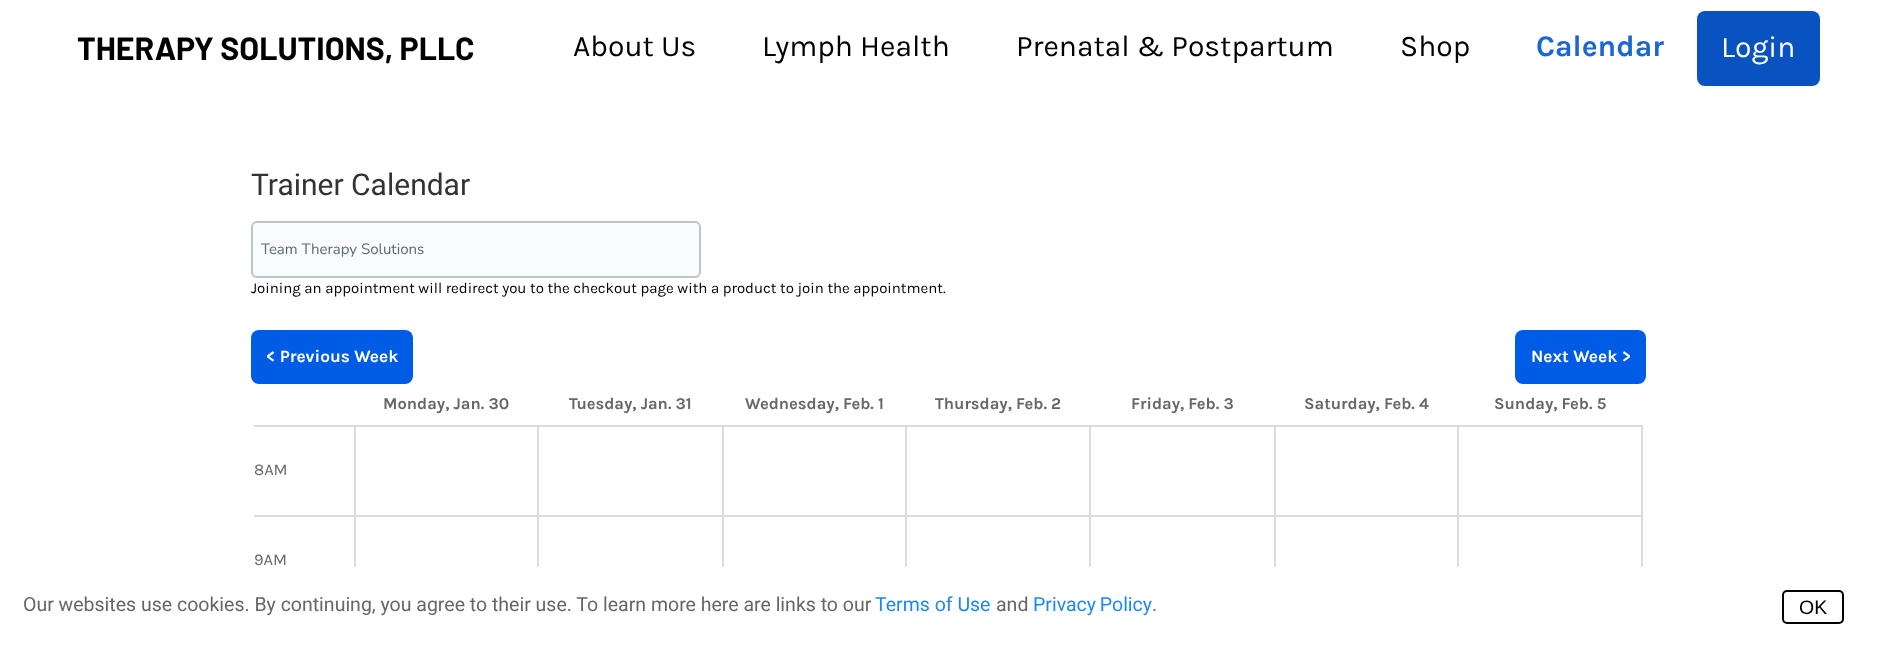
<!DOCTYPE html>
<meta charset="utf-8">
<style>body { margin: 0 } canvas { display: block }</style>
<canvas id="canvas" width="1895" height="646"></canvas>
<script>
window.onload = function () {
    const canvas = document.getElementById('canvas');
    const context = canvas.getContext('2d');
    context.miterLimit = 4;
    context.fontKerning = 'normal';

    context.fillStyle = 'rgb(255, 255, 255)';
    context.fillRect(0, 0, 1895, 646);
    context.fillStyle = 'rgb(8, 83, 192)';
    context.beginPath();
    context.roundRect(1697, 11, 123, 75, 8);
    context.fill();
    context.fillStyle = 'rgb(250, 251, 252)';
    context.beginPath();
    context.roundRect(252, 222, 448, 55, 5);
    context.fill();
    context.strokeStyle = 'rgb(188, 197, 205)';
    context.lineWidth = 2;
    context.stroke();
    context.fillStyle = 'rgb(0, 92, 229)';
    context.beginPath();
    context.roundRect(251, 330, 162, 54, 8);
    context.fill();
    context.beginPath();
    context.roundRect(1515, 330, 131, 54, 8);
    context.fill();
    context.fillStyle = 'rgb(218, 220, 224)';
    context.fillRect(254, 425, 469, 2);
    context.fillRect(537, 425, 2, 90);
    context.fillRect(722, 425, 2, 90);
    context.fillRect(723, 425, 183, 2);
    context.fillRect(905, 425, 2, 90);
    context.fillRect(906, 425, 369, 2);
    context.fillRect(1089, 425, 2, 90);
    context.fillRect(1274, 425, 2, 90);
    context.fillRect(354, 425, 2, 90);
    context.fillRect(1275, 425, 183, 2);
    context.fillRect(1457, 425, 2, 90);
    context.fillRect(1458, 425, 185, 2);
    context.fillRect(1641, 425, 2, 90);
    context.fillRect(254, 515, 469, 2);
    context.fillRect(537, 515, 2, 52);
    context.fillRect(722, 515, 2, 52);
    context.fillRect(723, 515, 183, 2);
    context.fillRect(905, 515, 2, 52);
    context.fillRect(906, 515, 369, 2);
    context.fillRect(1089, 515, 2, 52);
    context.fillRect(1274, 515, 2, 52);
    context.fillRect(354, 515, 2, 52);
    context.fillRect(1275, 515, 183, 2);
    context.fillRect(1457, 515, 2, 52);
    context.fillRect(1458, 515, 185, 2);
    context.fillRect(1641, 515, 2, 52);
    context.beginPath();
    context.roundRect(1783, 591, 60, 32, 4);
    context.strokeStyle = 'rgb(0, 0, 0)';
    context.stroke();
    context.font = 'bold 32px Barlow';
    context.fillStyle = 'rgb(0, 0, 0)';
    context.fillText('THERAPY SOLUTIONS, PLLC', 77, 60);
    context.font = '30px Karla';
    context.fillText('About Us', 573, 56);
    context.fillText('Lymph Health', 762, 56);
    context.fillText('Prenatal & Postpartum', 1016, 56);
    context.fillText('Shop', 1400, 56);
    context.font = 'bold 30px Karla';
    context.fillStyle = 'rgb(27, 102, 212)';
    context.fillText('Calendar', 1536, 56);
    context.font = '30px Karla';
    context.fillStyle = 'rgb(255, 255, 255)';
    context.fillText('Login', 1721, 57);
    context.font = '30px Roboto';
    context.fillStyle = 'rgb(51, 51, 51)';
    context.fillText('Trainer Calendar', 251, 195);
    context.font = '15px Nunito';
    context.fillStyle = 'rgb(92, 106, 121)';
    context.fillText('Team Therapy Solutions', 261, 254);
    context.font = '15px Karla';
    context.fillStyle = 'rgb(0, 0, 0)';
    context.fillText('Joining an appointment will redirect you to the checkout page with a product to join the appointment.', 251, 293);
    context.font = 'bold 17.25px Karla';
    context.fillStyle = 'rgb(255, 255, 255)';
    context.fillText('< Previous Week', 266, 362);
    context.fillText('Next Week >', 1531, 362);
    context.font = 'bold 16.5px Karla';
    context.fillStyle = 'rgb(102, 102, 102)';
    context.fillText('Monday, Jan. 30', 383, 409);
    context.fillText('Tuesday, Jan. 31', 569, 409);
    context.fillText('Wednesday, Feb. 1', 745, 409);
    context.fillText('Thursday, Feb. 2', 935, 409);
    context.fillText('Friday, Feb. 3', 1131, 409);
    context.fillText('Saturday, Feb. 4', 1304, 409);
    context.fillText('Sunday, Feb. 5', 1494, 409);
    context.font = '16.5px Karla';
    context.fillText('8AM', 254, 475);
    context.fillText('9AM', 254, 565);
    context.font = '19.5px Roboto';
    context.fillText('Our websites use cookies. By continuing, you agree to their use. To learn more here are links to our', 23, 611);
    context.fillStyle = 'rgb(30, 135, 240)';
    context.fillText('Terms of Use', 875, 611);
    context.fillStyle = 'rgb(102, 102, 102)';
    context.fillText('and', 996, 611);
    context.wordSpacing = '-1px';
    context.fillStyle = 'rgb(30, 135, 240)';
    context.fillText('Privacy Policy', 1033, 611);
    context.wordSpacing = '0px';
    context.fillStyle = 'rgb(102, 102, 102)';
    context.fillText('.', 1152, 611);
    context.font = '19.5px Liberation Sans';
    context.fillStyle = 'rgb(0, 0, 0)';
    context.fillText('OK', 1799, 614);
};
</script>
